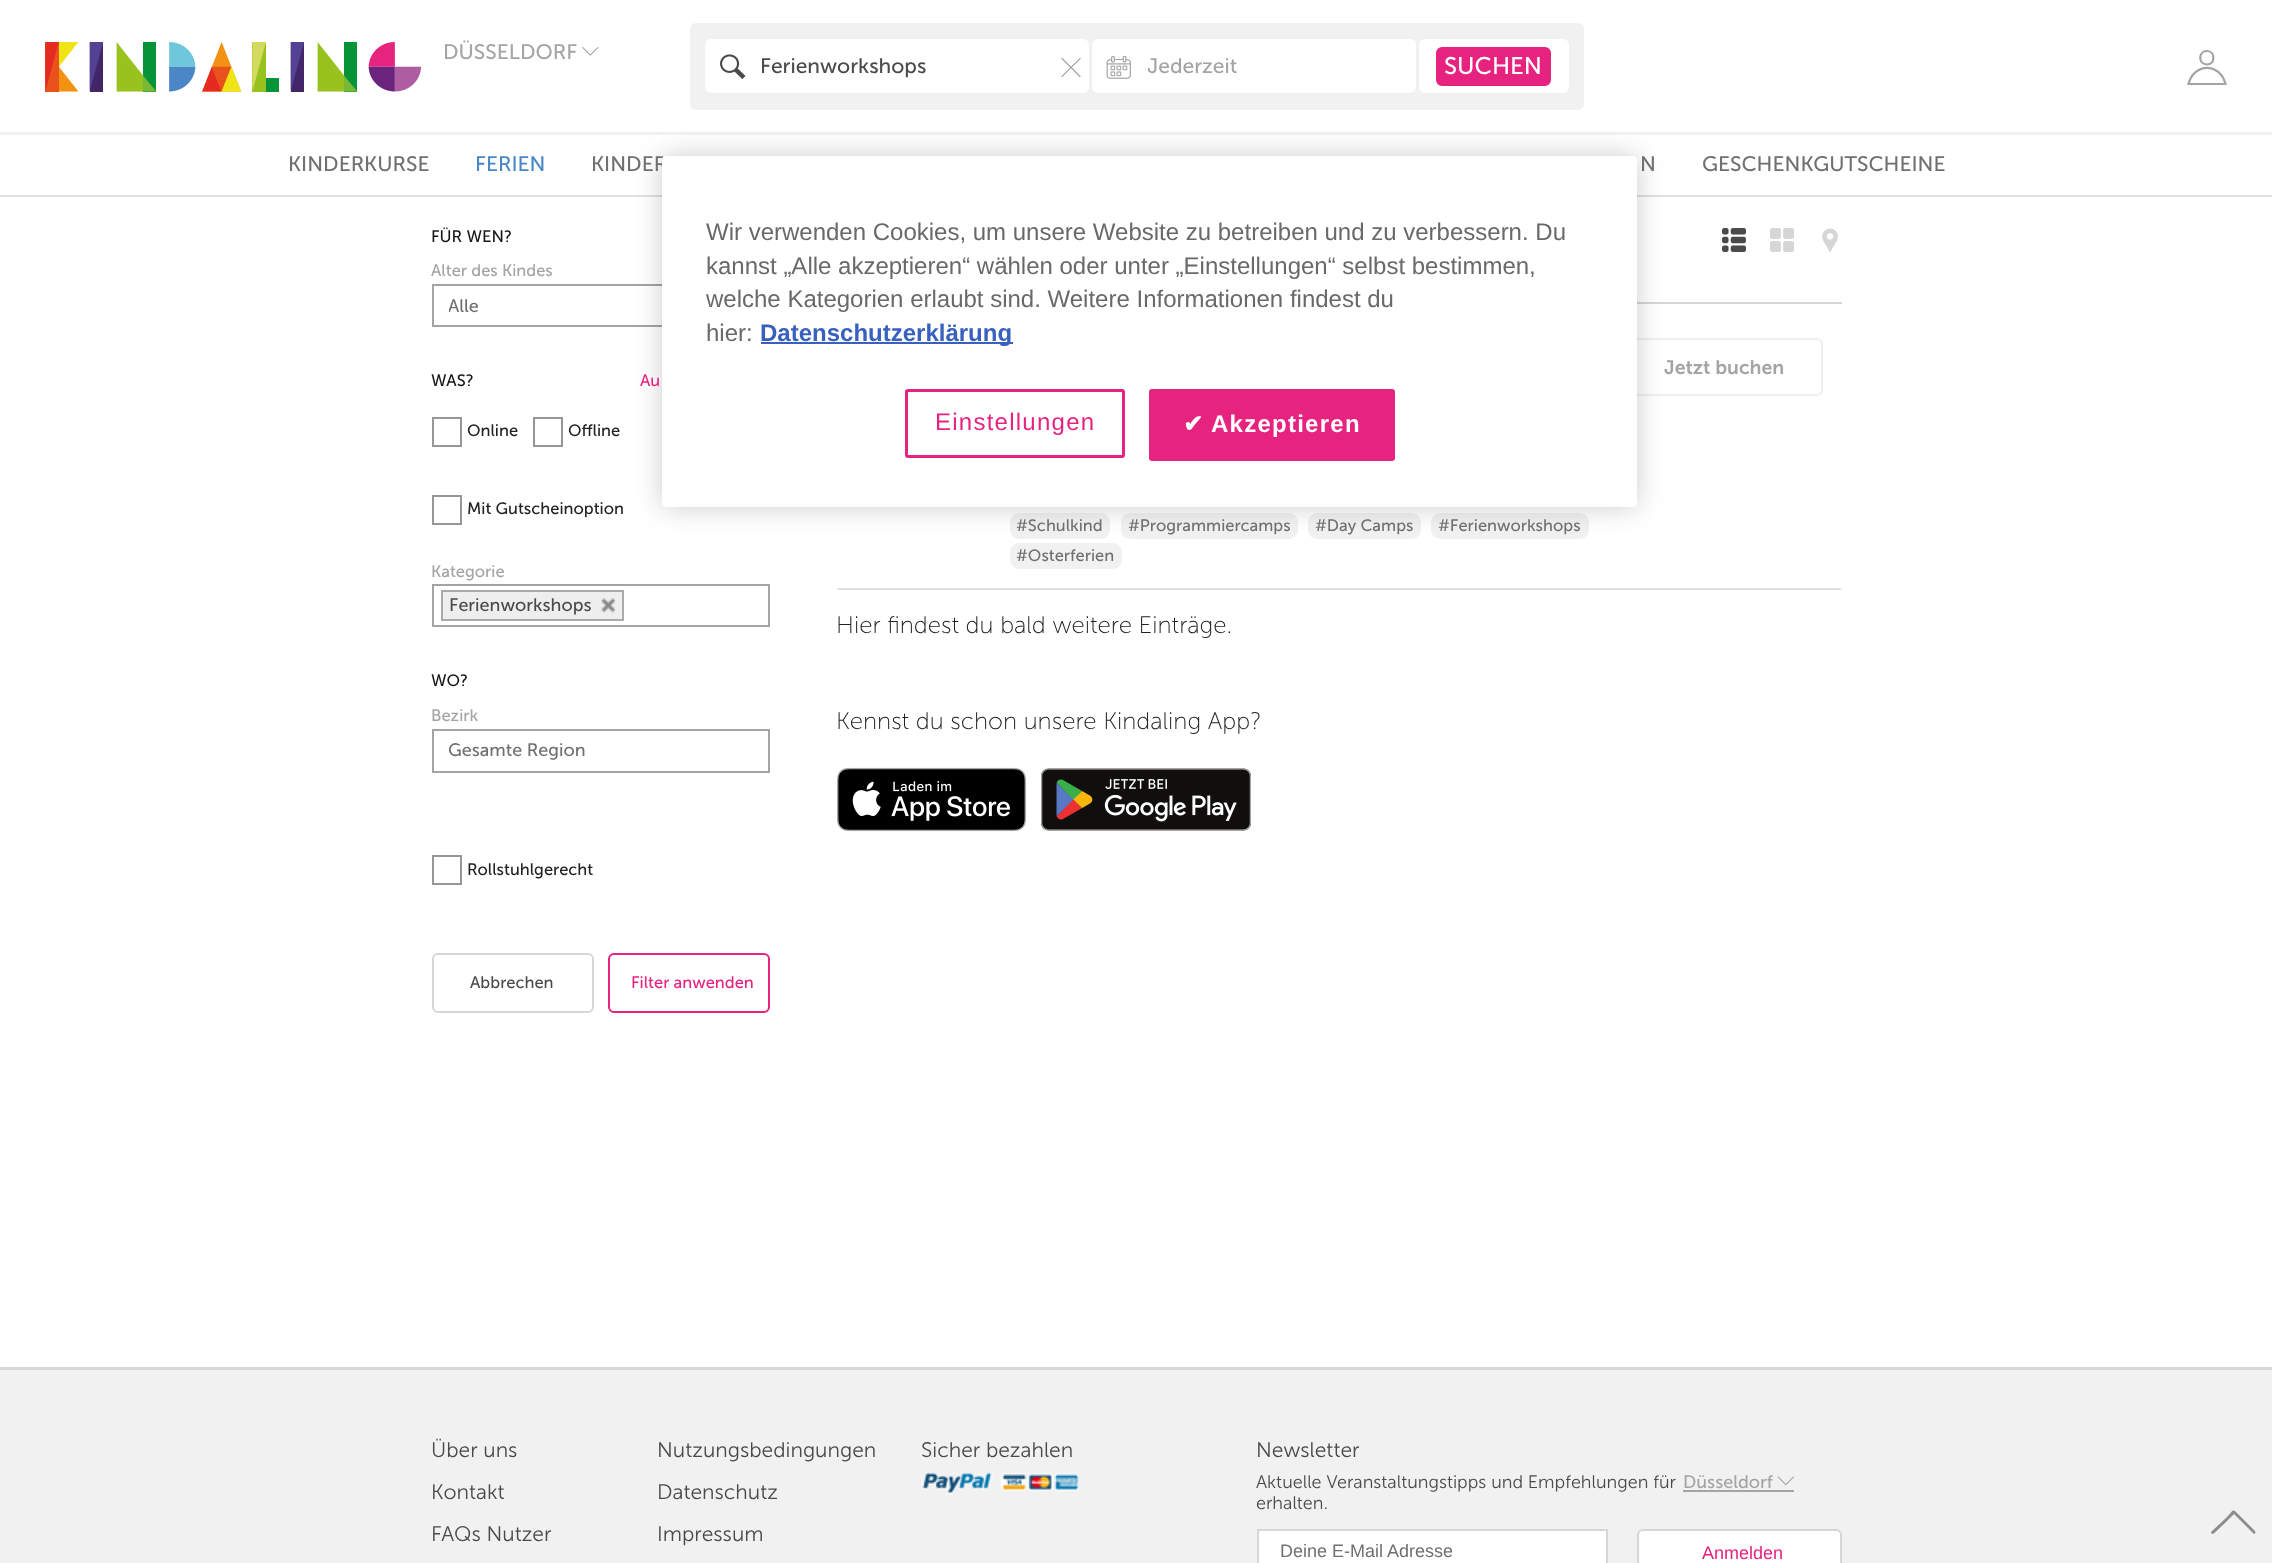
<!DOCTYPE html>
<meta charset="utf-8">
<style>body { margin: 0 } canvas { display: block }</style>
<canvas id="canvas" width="2272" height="1563"></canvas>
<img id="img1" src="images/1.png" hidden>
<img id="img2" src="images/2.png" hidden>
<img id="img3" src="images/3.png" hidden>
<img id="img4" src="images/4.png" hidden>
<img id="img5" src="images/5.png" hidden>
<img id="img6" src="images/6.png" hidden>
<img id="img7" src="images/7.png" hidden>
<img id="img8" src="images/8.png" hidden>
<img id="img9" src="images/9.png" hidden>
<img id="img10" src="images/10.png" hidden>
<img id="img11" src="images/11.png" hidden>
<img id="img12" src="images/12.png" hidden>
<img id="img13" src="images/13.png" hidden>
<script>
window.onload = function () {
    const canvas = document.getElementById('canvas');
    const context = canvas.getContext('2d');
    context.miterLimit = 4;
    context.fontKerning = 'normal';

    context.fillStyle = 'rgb(255, 255, 255)';
    context.fillRect(0, 0, 2272, 1563);
    context.fillStyle = 'rgb(241, 241, 241)';
    context.fillRect(0, 132, 2272, 3);
    context.drawImage(document.getElementById('img1'), 45, 42, 377, 50);
    context.drawImage(document.getElementById('img2'), 582, 47, 17, 9);
    context.beginPath();
    context.roundRect(690, 23, 894, 87, 6);
    context.fill();
    context.fillStyle = 'rgb(255, 255, 255)';
    context.beginPath();
    context.roundRect(705, 39, 384, 54, 6);
    context.fill();
    context.drawImage(document.getElementById('img3'), 720, 54, 26, 25);
    context.beginPath();
    context.moveTo(1062, 58.5);
    context.lineTo(1080, 76.5);
    context.moveTo(1080, 58.5);
    context.lineTo(1062, 76.5);
    context.strokeStyle = 'rgb(164, 164, 164)';
    context.lineWidth = 1.2;
    context.lineCap = 'square';
    context.stroke();
    context.beginPath();
    context.roundRect(1092, 39, 324, 54, 6);
    context.fill();
    context.drawImage(document.getElementById('img4'), 1106, 56, 25, 23);
    context.beginPath();
    context.roundRect(1419, 39, 150, 54, 6);
    context.fill();
    context.fillStyle = 'rgb(231, 35, 128)';
    context.beginPath();
    context.roundRect(1437, 48, 113, 37, 5);
    context.fill();
    context.strokeStyle = 'rgb(231, 35, 128)';
    context.lineWidth = 2;
    context.stroke();
    context.save();
    context.beginPath();
    context.rect(2187, 50, 40, 35);
    context.clip();
    context.beginPath();
    context.moveTo(2188.5, 84);
    context.bezierCurveTo(2194, 62.5, 2220, 62.5, 2225.5, 84);
    context.closePath();
    context.strokeStyle = 'rgb(164, 164, 164)';
    context.lineWidth = 2.2;
    context.lineCap = 'butt';
    context.stroke();
    context.restore();
    context.beginPath();
    context.moveTo(2207, 64.5);
    context.bezierCurveTo(2215.5, 64.5, 2215.5, 51, 2207, 51);
    context.bezierCurveTo(2198, 51, 2198, 64.5, 2207, 64.5);
    context.closePath();
    context.strokeStyle = 'rgb(164, 164, 164)';
    context.lineWidth = 2.2;
    context.lineCap = 'butt';
    context.stroke();
    context.fillStyle = 'rgb(224, 224, 224)';
    context.fillRect(0, 195, 2272, 2);
    context.lineWidth = 2;
    context.strokeRect(433, 285, 336, 41);
    context.strokeStyle = 'rgb(151, 151, 151)';
    context.strokeRect(433, 418, 28, 28);
    context.strokeRect(534, 418, 28, 28);
    context.strokeRect(433, 496, 28, 28);
    context.strokeStyle = 'rgb(164, 164, 164)';
    context.strokeRect(433, 585, 336, 41);
    context.fillStyle = 'rgb(238, 238, 238)';
    context.beginPath();
    context.rect(442, 591, 181, 29);
    context.fill();
    context.strokeStyle = 'rgb(170, 170, 170)';
    context.stroke();
    context.drawImage(document.getElementById('img5'), 601, 598, 14, 15);
    context.strokeStyle = 'rgb(164, 164, 164)';
    context.strokeRect(433, 730, 336, 42);
    context.strokeStyle = 'rgb(151, 151, 151)';
    context.strokeRect(433, 856, 28, 28);
    context.beginPath();
    context.roundRect(433, 954, 160, 58, 5);
    context.strokeStyle = 'rgb(214, 214, 214)';
    context.stroke();
    context.beginPath();
    context.roundRect(609, 954, 160, 58, 5);
    context.strokeStyle = 'rgb(231, 35, 128)';
    context.stroke();
    context.fillStyle = 'rgb(214, 214, 214)';
    context.fillRect(1637, 302, 205, 2);
    context.drawImage(document.getElementById('img6'), 1722, 228, 24, 24);
    context.drawImage(document.getElementById('img7'), 1770, 228, 24, 24);
    context.drawImage(document.getElementById('img8'), 1822, 228, 16, 24);
    context.fillStyle = 'rgb(224, 224, 224)';
    context.beginPath();
    context.moveTo(1842, 590);
    context.lineTo(837, 590);
    context.lineTo(838, 588);
    context.lineTo(1840, 588);
    context.closePath();
    context.fill();
    context.beginPath();
    context.roundRect(1627, 339, 195, 56, 5);
    context.strokeStyle = 'rgb(239, 239, 239)';
    context.stroke();
    context.fillStyle = 'rgb(241, 241, 241)';
    context.beginPath();
    context.roundRect(1010, 513, 100, 26, 9);
    context.fill();
    context.beginPath();
    context.roundRect(1121, 513, 177, 26, 9);
    context.fill();
    context.beginPath();
    context.roundRect(1308, 513, 113, 26, 9);
    context.fill();
    context.beginPath();
    context.roundRect(1431, 513, 158, 26, 9);
    context.fill();
    context.beginPath();
    context.roundRect(1010, 543, 112, 26, 9);
    context.fill();
    context.drawImage(document.getElementById('img9'), 837, 767, 189, 65);
    context.drawImage(document.getElementById('img10'), 1041, 768, 210, 63);
    context.fillRect(0, 1370, 2272, 193);
    context.fillStyle = 'rgb(216, 216, 216)';
    context.fillRect(0, 1367, 2272, 3);
    context.drawImage(document.getElementById('img11'), 921, 1472, 72, 22);
    context.drawImage(document.getElementById('img12'), 1000, 1473, 79, 18);
    context.fillStyle = 'rgb(164, 164, 164)';
    context.fillRect(1683, 1490, 111, 2);
    context.drawImage(document.getElementById('img13'), 1777, 1476, 17, 10);
    context.fillStyle = 'rgb(255, 255, 255)';
    context.beginPath();
    context.rect(1258, 1530, 349, 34);
    context.fill();
    context.strokeStyle = 'rgb(214, 214, 214)';
    context.stroke();
    context.fillStyle = 'rgb(254, 254, 254)';
    context.beginPath();
    context.roundRect(1638, 1530, 203, 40, 5);
    context.fill();
    context.stroke();
    context.fillStyle = 'rgba(0, 0, 0, 0.2)';
    context.filter = 'blur(13.5px)';
    context.beginPath();
    context.roundRect(662, 156, 975, 351, 4);
    context.fill();
    context.filter = 'none';
    context.fillStyle = 'rgb(141, 141, 141)';
    context.beginPath();
    context.moveTo(2211, 1532);
    context.bezierCurveTo(2211, 1533, 2212, 1534, 2213, 1534);
    context.bezierCurveTo(2214, 1534, 2231, 1517, 2234, 1514);
    context.lineTo(2254, 1534);
    context.bezierCurveTo(2255, 1534, 2256, 1533, 2255, 1531);
    context.lineTo(2238, 1514);
    context.bezierCurveTo(2232, 1508, 2234, 1510, 2226, 1518);
    context.closePath();
    context.fill();
    context.font = '21px Museo Sans';
    context.fillStyle = 'rgb(164, 164, 164)';
    context.fillText('DÜSSELDORF', 443, 59);
    context.fillStyle = 'rgb(74, 74, 74)';
    context.fillText('Ferienworkshops', 760, 73);
    context.save();
    context.beginPath();
    context.rect(1148, 56, 232, 22);
    context.clip();
    context.fillStyle = 'rgb(164, 164, 164)';
    context.fillText('Jederzeit', 1147, 73);
    context.restore();
    context.font = '24px Museo Sans';
    context.fillStyle = 'rgb(255, 255, 255)';
    context.fillText('SUCHEN', 1444, 74);
    context.font = '21px Museo Sans';
    context.fillStyle = 'rgb(113, 112, 112)';
    context.fillText('KINDERKURSE', 288, 171);
    context.fillStyle = 'rgb(75, 135, 198)';
    context.fillText('FERIEN', 475, 171);
    context.fillStyle = 'rgb(113, 112, 112)';
    context.fillText('KINDER', 591, 171);
    context.fillText('N', 1640, 171);
    context.fillText('GESCHENKGUTSCHEINE', 1702, 171);
    context.font = '16.5px Museo Sans';
    context.fillStyle = 'rgb(22, 22, 21)';
    context.fillText('FÜR WEN?', 431, 242);
    context.fillStyle = 'rgb(164, 164, 164)';
    context.fillText('Alter des Kindes', 431, 276);
    context.save();
    context.beginPath();
    context.rect(449, 296, 69, 21);
    context.clip();
    context.font = '18px Museo Sans';
    context.fillStyle = 'rgb(113, 112, 112)';
    context.fillText('Alle', 448, 312);
    context.restore();
    context.fillStyle = 'rgb(22, 22, 21)';
    context.fillText('WAS?', 431, 386);
    context.fillStyle = 'rgb(231, 35, 128)';
    context.fillText('Au', 640, 386);
    context.fillStyle = 'rgb(34, 34, 34)';
    context.fillText('Online', 467, 436);
    context.fillText('Offline', 568, 436);
    context.fillText('Mit Gutscheinoption', 467, 514);
    context.fillStyle = 'rgb(164, 164, 164)';
    context.fillText('Kategorie', 431, 577);
    context.font = '18px Museo Sans';
    context.fillStyle = 'rgb(74, 74, 74)';
    context.fillText('Ferienworkshops', 449, 611);
    context.font = '16.5px Museo Sans';
    context.fillStyle = 'rgb(22, 22, 21)';
    context.fillText('WO?', 431, 686);
    context.fillStyle = 'rgb(164, 164, 164)';
    context.fillText('Bezirk', 431, 721);
    context.save();
    context.beginPath();
    context.rect(449, 740, 175, 21);
    context.clip();
    context.font = '18px Museo Sans';
    context.fillStyle = 'rgb(113, 112, 112)';
    context.fillText('Gesamte Region', 448, 756);
    context.restore();
    context.fillStyle = 'rgb(34, 34, 34)';
    context.fillText('Rollstuhlgerecht', 467, 875);
    context.fillStyle = 'rgb(74, 74, 74)';
    context.fillText('Abbrechen', 470, 988);
    context.fillStyle = 'rgb(231, 35, 128)';
    context.fillText('Filter anwenden', 631, 988);
    context.font = '600 19.5px Museo Sans';
    context.fillStyle = 'rgb(164, 164, 164)';
    context.fillText('Jetzt buchen', 1664, 374);
    context.font = '16.5px Museo Sans';
    context.fillStyle = 'rgb(113, 112, 112)';
    context.fillText('#Schulkind', 1016, 531);
    context.fillText('#Programmiercamps', 1128, 531);
    context.fillText('#Day Camps', 1315, 531);
    context.fillText('#Ferienworkshops', 1438, 531);
    context.fillText('#Osterferien', 1016, 561);
    context.font = '200 24px Museo Sans';
    context.fillStyle = 'rgb(34, 34, 34)';
    context.fillText('Hier findest du bald weitere Einträge.', 836, 633);
    context.fillText('Kennst du schon unsere Kindaling App?', 836, 729);
    context.font = '300 21px Museo Sans';
    context.fillStyle = 'rgb(74, 74, 74)';
    context.fillText('Über uns', 431, 1457);
    context.fillText('Kontakt', 431, 1499);
    context.fillText('FAQs Nutzer', 431, 1541);
    context.fillText('Nutzungsbedingungen', 657, 1457);
    context.fillText('Datenschutz', 657, 1499);
    context.fillText('Impressum', 657, 1541);
    context.fillText('Sicher bezahlen', 921, 1457);
    context.fillText('Newsletter', 1256, 1457);
    context.font = '300 18px Museo Sans';
    context.fillText('Aktuelle Veranstaltungstipps und Empfehlungen für', 1256, 1488);
    context.font = '18px Museo Sans';
    context.fillStyle = 'rgb(164, 164, 164)';
    context.fillText('Düsseldorf', 1683, 1488);
    context.font = '300 18px Museo Sans';
    context.fillStyle = 'rgb(74, 74, 74)';
    context.fillText('erhalten.', 1256, 1509);
    context.font = '18px Liberation Sans';
    context.fillStyle = 'rgb(113, 112, 112)';
    context.fillText('Deine E-Mail Adresse', 1280, 1557);
    context.fillStyle = 'rgb(231, 35, 128)';
    context.fillText('Anmelden', 1702, 1559);
    context.fillStyle = 'rgb(255, 255, 255)';
    context.beginPath();
    context.roundRect(662, 156, 975, 351, 4);
    context.fill();
    context.font = '24px Liberation Sans';
    context.fillStyle = 'rgb(105, 105, 105)';
    context.fillText('Wir verwenden Cookies, um unsere Website zu betreiben und zu verbessern. Du', 706, 240);
    context.fillText('kannst „Alle akzeptieren“ wählen oder unter „Einstellungen“ selbst bestimmen,', 706, 274);
    context.fillText('welche Kategorien erlaubt sind. Weitere Informationen findest du', 706, 307);
    context.fillText('hier:', 706, 341);
    context.fillStyle = 'rgb(56, 96, 190)';
    context.fillRect(761, 342, 252, 2);
    context.font = 'bold 24px Liberation Sans';
    context.fillText('Datenschutzerklärung', 760, 341);
    context.beginPath();
    context.roundRect(906.5, 390.5, 217, 66, 1.5);
    context.strokeStyle = 'rgb(231, 35, 128)';
    context.lineWidth = 3;
    context.stroke();
    context.letterSpacing = '1.25px';
    context.font = '24px Liberation Sans';
    context.fillStyle = 'rgb(231, 35, 128)';
    context.fillText('Einstellungen', 935, 430);
    context.beginPath();
    context.roundRect(1150, 390, 244, 70, 2);
    context.fill();
    context.lineWidth = 2;
    context.stroke();
    context.font = 'bold 24px DejaVu Sans';
    context.fillStyle = 'rgb(255, 255, 255)';
    context.fillText('✔', 1183, 432);
    context.font = 'bold 24px Liberation Sans';
    context.fillText('Akzeptieren', 1211, 432);
};
</script>
